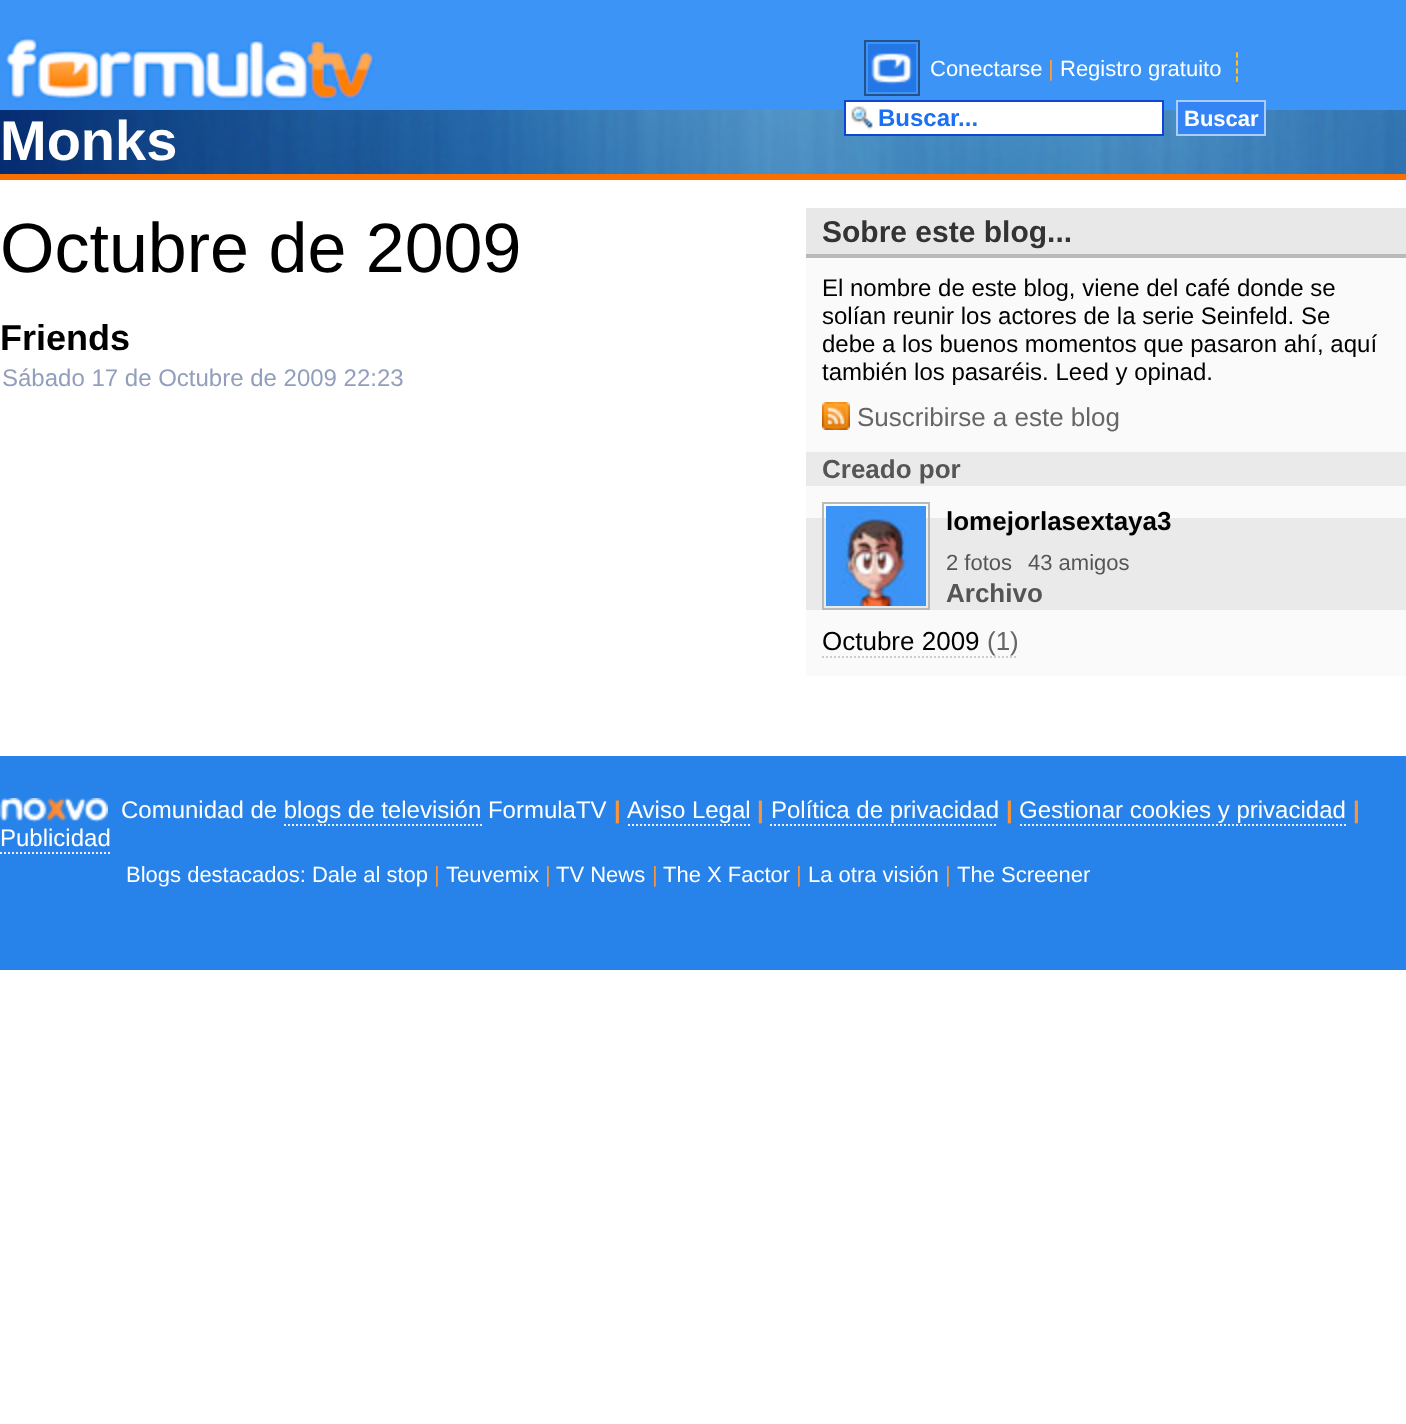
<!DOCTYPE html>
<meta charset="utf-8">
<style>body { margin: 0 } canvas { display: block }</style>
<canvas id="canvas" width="1406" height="1424"></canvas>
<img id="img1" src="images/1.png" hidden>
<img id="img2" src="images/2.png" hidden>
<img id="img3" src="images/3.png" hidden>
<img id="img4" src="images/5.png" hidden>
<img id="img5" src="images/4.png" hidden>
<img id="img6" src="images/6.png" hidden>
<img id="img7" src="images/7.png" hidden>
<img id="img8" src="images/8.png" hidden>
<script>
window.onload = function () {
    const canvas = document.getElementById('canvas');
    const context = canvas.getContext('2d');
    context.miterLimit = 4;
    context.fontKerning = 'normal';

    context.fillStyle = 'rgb(255, 255, 255)';
    context.fillRect(0, 0, 1406, 1424);
    context.fillStyle = 'rgb(60, 148, 246)';
    context.fillRect(0, 0, 1406, 110);
    context.drawImage(document.getElementById('img1'), 4, 36, 371, 65);
    context.strokeStyle = 'rgb(36, 81, 140)';
    context.lineWidth = 2;
    context.strokeRect(865, 41, 54, 54);
    context.drawImage(document.getElementById('img2'), 868, 44, 48, 48);
    context.drawImage(document.getElementById('img3'), 1236, 50, 2, 34);
    context.drawImage(document.getElementById('img4'), 0, 110, 1406, 64);
    context.fillStyle = 'rgb(255, 255, 255)';
    context.fillRect(846, 102, 316, 32);
    context.drawImage(document.getElementById('img5'), 851, 106, 22, 24);
    context.strokeStyle = 'rgb(16, 69, 209)';
    context.strokeRect(845, 101, 318, 34);
    context.fillStyle = 'rgb(53, 132, 245)';
    context.beginPath();
    context.rect(1177, 101, 88, 34);
    context.fill();
    context.strokeStyle = 'rgb(172, 204, 251)';
    context.stroke();
    context.fillStyle = 'rgb(250, 111, 0)';
    context.fillRect(0, 174, 1406, 6);
    context.fillStyle = 'rgb(232, 232, 232)';
    context.fillRect(806, 208, 600, 46);
    context.fillStyle = 'rgb(185, 185, 185)';
    context.fillRect(806, 254, 600, 4);
    context.fillStyle = 'rgb(250, 250, 250)';
    context.fillRect(806, 258, 600, 194);
    context.drawImage(document.getElementById('img6'), 822, 402, 28, 28);
    context.fillStyle = 'rgb(234, 234, 234)';
    context.fillRect(806, 452, 600, 34);
    context.fillStyle = 'rgb(250, 250, 250)';
    context.fillRect(806, 486, 600, 32);
    context.fillStyle = 'rgb(234, 234, 234)';
    context.fillRect(806, 518, 600, 92);
    context.strokeStyle = 'rgb(185, 185, 185)';
    context.strokeRect(823, 503, 106, 106);
    context.drawImage(document.getElementById('img7'), 826, 506, 100, 100);
    context.fillStyle = 'rgb(250, 250, 250)';
    context.fillRect(806, 610, 600, 66);
    context.beginPath();
    context.moveTo(822, 657);
    context.lineTo(986, 657);
    context.strokeStyle = 'rgb(204, 204, 204)';
    context.setLineDash([2, 2]);
    context.stroke();
    context.beginPath();
    context.moveTo(986, 657);
    context.lineTo(1018, 657);
    context.stroke();
    context.fillStyle = 'rgb(39, 131, 234)';
    context.fillRect(0, 756, 1406, 214);
    context.drawImage(document.getElementById('img8'), 0, 798, 108, 24);
    context.beginPath();
    context.moveTo(284, 825);
    context.lineTo(482, 825);
    context.strokeStyle = 'rgb(238, 238, 238)';
    context.stroke();
    context.beginPath();
    context.moveTo(628, 825);
    context.lineTo(750, 825);
    context.stroke();
    context.beginPath();
    context.moveTo(770, 825);
    context.lineTo(998, 825);
    context.stroke();
    context.beginPath();
    context.moveTo(1020, 825);
    context.lineTo(1346, 825);
    context.stroke();
    context.beginPath();
    context.moveTo(0, 853);
    context.lineTo(110, 853);
    context.stroke();
    context.font = '22px Liberation Sans';
    context.fillStyle = 'rgb(255, 255, 255)';
    context.fillText('Conectarse', 930, 76);
    context.fillStyle = 'rgb(255, 155, 56)';
    context.fillText('|', 1048, 76);
    context.fillStyle = 'rgb(255, 255, 255)';
    context.fillText('Registro gratuito', 1060, 76);
    context.font = 'bold 24px Liberation Sans';
    context.fillStyle = 'rgb(26, 113, 242)';
    context.fillText('Buscar...', 878, 126);
    context.font = 'bold 22px Liberation Sans';
    context.fillStyle = 'rgb(255, 255, 255)';
    context.fillText('Buscar', 1184, 126);
    context.font = 'bold 56px Liberation Sans';
    context.fillText('Monks', 0, 160);
    context.font = '70px Liberation Sans';
    context.fillStyle = 'rgb(0, 0, 0)';
    context.fillText('Octubre de 2009', 0, 272);
    context.font = 'bold 36px Liberation Sans';
    context.fillText('Friends', 0, 350);
    context.font = '24px Liberation Sans';
    context.fillStyle = 'rgb(146, 158, 188)';
    context.fillText('Sábado 17 de Octubre de 2009 22:23', 2, 386);
    context.font = 'bold 30px Liberation Sans';
    context.fillStyle = 'rgb(51, 51, 51)';
    context.fillText('Sobre este blog...', 822, 242);
    context.font = '24px Liberation Sans';
    context.fillStyle = 'rgb(0, 0, 0)';
    context.fillText('El nombre de este blog, viene del café donde se', 822, 296);
    context.fillText('solían reunir los actores de la serie Seinfeld. Se', 822, 324);
    context.fillText('debe a los buenos momentos que pasaron ahí, aquí', 822, 352);
    context.fillText('también los pasaréis. Leed y opinad.', 822, 380);
    context.font = '26px Liberation Sans';
    context.fillStyle = 'rgb(102, 102, 102)';
    context.fillText('Suscribirse a este blog', 857, 426);
    context.font = 'bold 26px Liberation Sans';
    context.fillStyle = 'rgb(85, 85, 85)';
    context.fillText('Creado por', 822, 478);
    context.fillStyle = 'rgb(0, 0, 0)';
    context.fillText('lomejorlasextaya3', 946, 530);
    context.font = '22px Liberation Sans';
    context.fillStyle = 'rgb(85, 85, 85)';
    context.fillText('2 fotos', 946, 570);
    context.fillText('43 amigos', 1028, 570);
    context.font = 'bold 26px Liberation Sans';
    context.fillText('Archivo', 946, 602);
    context.font = '26px Liberation Sans';
    context.fillStyle = 'rgb(0, 0, 0)';
    context.fillText('Octubre 2009', 822, 650);
    context.fillStyle = 'rgb(102, 102, 102)';
    context.fillText('(1)', 987, 650);
    context.font = '24px Liberation Sans';
    context.fillStyle = 'rgb(255, 255, 255)';
    context.fillText('Comunidad de blogs de televisión FormulaTV', 121, 818);
    context.font = 'bold 24px Liberation Sans';
    context.fillStyle = 'rgb(255, 148, 53)';
    context.fillText('|', 614, 818);
    context.font = '24px Liberation Sans';
    context.fillStyle = 'rgb(255, 255, 255)';
    context.fillText('Aviso Legal', 627, 818);
    context.font = 'bold 24px Liberation Sans';
    context.fillStyle = 'rgb(255, 148, 53)';
    context.fillText('|', 757, 818);
    context.font = '24px Liberation Sans';
    context.fillStyle = 'rgb(255, 255, 255)';
    context.fillText('Política de privacidad', 771, 818);
    context.font = 'bold 24px Liberation Sans';
    context.fillStyle = 'rgb(255, 148, 53)';
    context.fillText('|', 1006, 818);
    context.font = '24px Liberation Sans';
    context.fillStyle = 'rgb(255, 255, 255)';
    context.fillText('Gestionar cookies y privacidad', 1019, 818);
    context.font = 'bold 24px Liberation Sans';
    context.fillStyle = 'rgb(255, 148, 53)';
    context.fillText('|', 1353, 818);
    context.font = '24px Liberation Sans';
    context.fillStyle = 'rgb(255, 255, 255)';
    context.fillText('Publicidad', 0, 846);
    context.font = '22px Liberation Sans';
    context.fillText('Blogs destacados: Dale al stop', 126, 882);
    context.fillStyle = 'rgb(255, 148, 53)';
    context.fillText('|', 434, 882);
    context.fillStyle = 'rgb(255, 255, 255)';
    context.fillText('Teuvemix', 446, 882);
    context.fillStyle = 'rgb(255, 148, 53)';
    context.fillText('|', 545, 882);
    context.fillStyle = 'rgb(255, 255, 255)';
    context.fillText('TV News', 556, 882);
    context.fillStyle = 'rgb(255, 148, 53)';
    context.fillText('|', 652, 882);
    context.fillStyle = 'rgb(255, 255, 255)';
    context.fillText('The X Factor', 663, 882);
    context.fillStyle = 'rgb(255, 148, 53)';
    context.fillText('|', 796, 882);
    context.fillStyle = 'rgb(255, 255, 255)';
    context.fillText('La otra visión', 808, 882);
    context.fillStyle = 'rgb(255, 148, 53)';
    context.fillText('|', 945, 882);
    context.fillStyle = 'rgb(255, 255, 255)';
    context.fillText('The Screener', 957, 882);
};
</script>
